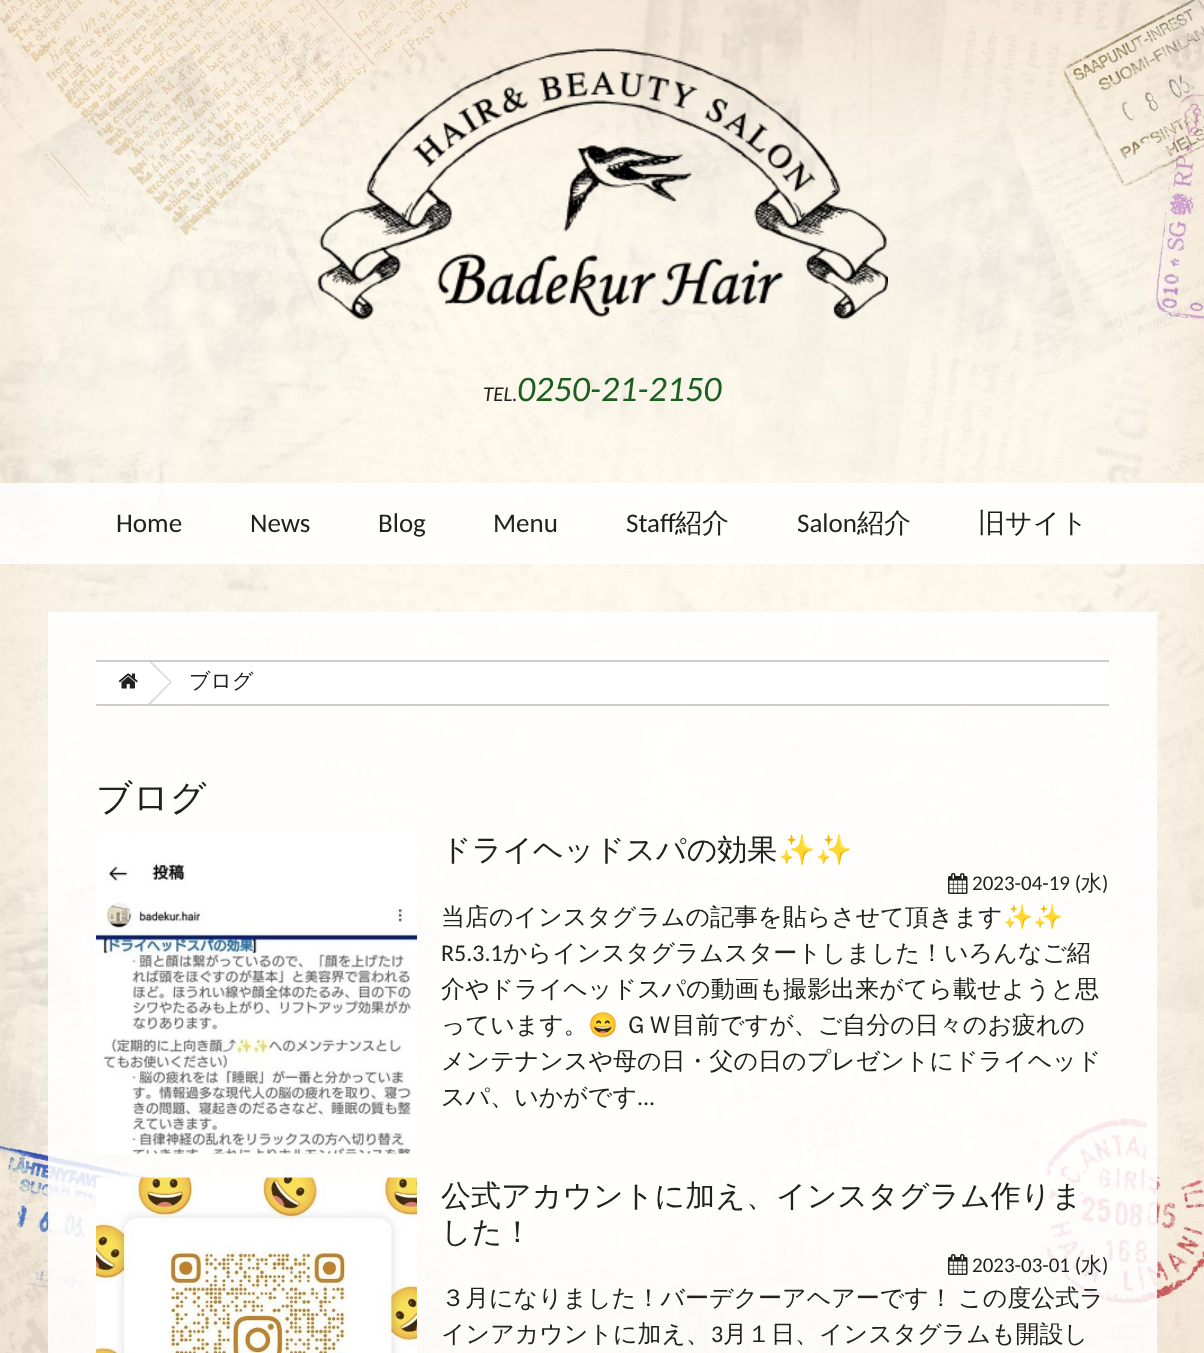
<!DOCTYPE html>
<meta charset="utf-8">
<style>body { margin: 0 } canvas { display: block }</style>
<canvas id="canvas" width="1204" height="1353"></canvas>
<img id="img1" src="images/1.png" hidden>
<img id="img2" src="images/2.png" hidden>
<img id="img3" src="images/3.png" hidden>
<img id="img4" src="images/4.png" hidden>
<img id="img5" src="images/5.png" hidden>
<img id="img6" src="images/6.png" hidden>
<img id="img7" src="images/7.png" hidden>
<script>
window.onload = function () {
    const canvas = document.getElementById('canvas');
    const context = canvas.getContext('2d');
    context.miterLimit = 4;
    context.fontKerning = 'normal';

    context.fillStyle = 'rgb(255, 255, 255)';
    context.fillRect(0, 0, 1204, 1353);
    context.drawImage(document.getElementById('img1'), 0, 0, 1204, 1353);
    context.drawImage(document.getElementById('img2'), 317, 48, 571, 272);
    context.fillStyle = 'rgba(255, 255, 255, 0.85)';
    context.fillRect(0, 483, 1204, 81);
    context.fillRect(48, 612, 1109, 741);
    context.fillStyle = 'rgb(255, 255, 255)';
    context.fillRect(96, 662, 1013, 42);
    context.fillStyle = 'rgb(204, 204, 204)';
    context.fillRect(96, 660, 1013, 2);
    context.fillRect(96, 704, 1013, 2);
    context.save();
    context.beginPath();
    context.rect(96, 662, 1013, 42);
    context.clip();
    context.fillStyle = 'rgb(217, 217, 217)';
    context.beginPath();
    context.moveTo(141, 714);
    context.lineTo(141, 651);
    context.lineTo(172, 682);
    context.closePath();
    context.fill();
    context.fillStyle = 'rgb(255, 255, 255)';
    context.beginPath();
    context.moveTo(138, 714);
    context.lineTo(138, 651);
    context.lineTo(170, 682);
    context.closePath();
    context.fill();
    context.restore();
    context.drawImage(document.getElementById('img3'), 118, 673, 20, 16);
    context.fillStyle = 'rgb(255, 255, 255)';
    context.fillRect(96, 833, 321, 321);
    context.drawImage(document.getElementById('img4'), 96, 860, 321, 294);
    context.drawImage(document.getElementById('img5'), 948, 873, 20, 21);
    context.drawImage(document.getElementById('img6'), 96, 1177, 321, 176);
    context.drawImage(document.getElementById('img7'), 948, 1254, 20, 21);
    context.font = 'italic 21px Carlito';
    context.fillStyle = 'rgb(33, 33, 33)';
    context.fillText('TEL.', 483, 401);
    context.font = 'italic 36px Carlito';
    context.fillStyle = 'rgb(27, 94, 32)';
    context.fillText('0250-21-2150', 517, 401);
    context.font = '27px Carlito';
    context.fillStyle = 'rgb(33, 33, 33)';
    context.fillText('Home', 116, 532);
    context.fillText('News', 250, 532);
    context.fillText('Blog', 378, 532);
    context.fillText('Menu', 493, 532);
    context.fillText('Staff', 626, 532);
    context.font = '500 27px WenQuanYi Zen Hei';
    context.fillText('紹介', 675, 532);
    context.font = '27px Carlito';
    context.fillText('Salon', 797, 532);
    context.font = '500 27px WenQuanYi Zen Hei';
    context.fillText('紹介', 857, 532);
    context.fillText('旧サイト', 978, 532);
    context.font = '500 21px WenQuanYi Zen Hei';
    context.fillText('ブログ', 189, 688);
    context.font = '500 36px WenQuanYi Zen Hei';
    context.fillText('ブログ', 96, 810);
    context.font = '500 30px WenQuanYi Zen Hei';
    context.fillText('ドライヘッドスパの効果', 441, 860);
    context.font = '30px Noto Color Emoji';
    context.fillText('✨✨', 778, 860);
    context.font = '21px Carlito';
    context.fillText('2023-04-19 (', 972, 890);
    context.font = '500 21px WenQuanYi Zen Hei';
    context.fillText('水', 1081, 890);
    context.font = '21px Carlito';
    context.fillText(')', 1102, 890);
    context.font = '500 24px WenQuanYi Zen Hei';
    context.fillText('当店のインスタグラムの記事を貼らさせて頂きます', 441, 925);
    context.font = '24px Noto Color Emoji';
    context.fillText('✨✨', 1003, 925);
    context.font = '24px Carlito';
    context.fillText('R5.3.1', 441, 961);
    context.font = '500 24px WenQuanYi Zen Hei';
    context.fillText('からインスタグラムスタートしました！いろんなご紹', 503, 961);
    context.fillText('介やドライヘッドスパの動画も撮影出来がてら載せようと思', 441, 997);
    context.fillText('っています。', 441, 1033);
    context.font = '24px Noto Color Emoji';
    context.fillText('😄', 588, 1033);
    context.font = '500 24px WenQuanYi Zen Hei';
    context.fillText('ＧＷ目前ですが、ご自分の日々のお疲れの', 624, 1033);
    context.fillText('メンテナンスや母の日・父の日のプレゼントにドライヘッド', 441, 1069);
    context.fillText('スパ、いかがです', 441, 1105);
    context.font = '24px Carlito';
    context.fillText('...', 637, 1105);
    context.font = '500 30px WenQuanYi Zen Hei';
    context.fillText('公式アカウントに加え、インスタグラム作りま', 441, 1206);
    context.fillText('した！', 441, 1242);
    context.font = '21px Carlito';
    context.fillText('2023-03-01 (', 972, 1272);
    context.font = '500 21px WenQuanYi Zen Hei';
    context.fillText('水', 1081, 1272);
    context.font = '21px Carlito';
    context.fillText(')', 1102, 1272);
    context.wordSpacing = '-2px';
    context.font = '500 24px WenQuanYi Zen Hei';
    context.fillText('３月になりました！バーデクーアヘアーです！ この度公式ラ', 441, 1306);
    context.wordSpacing = '0px';
    context.fillText('インアカウントに加え、', 441, 1342);
    context.font = '24px Carlito';
    context.fillText('3', 711, 1342);
    context.font = '500 24px WenQuanYi Zen Hei';
    context.fillText('月１日、インスタグラムも開設し', 723, 1342);
};
</script>
